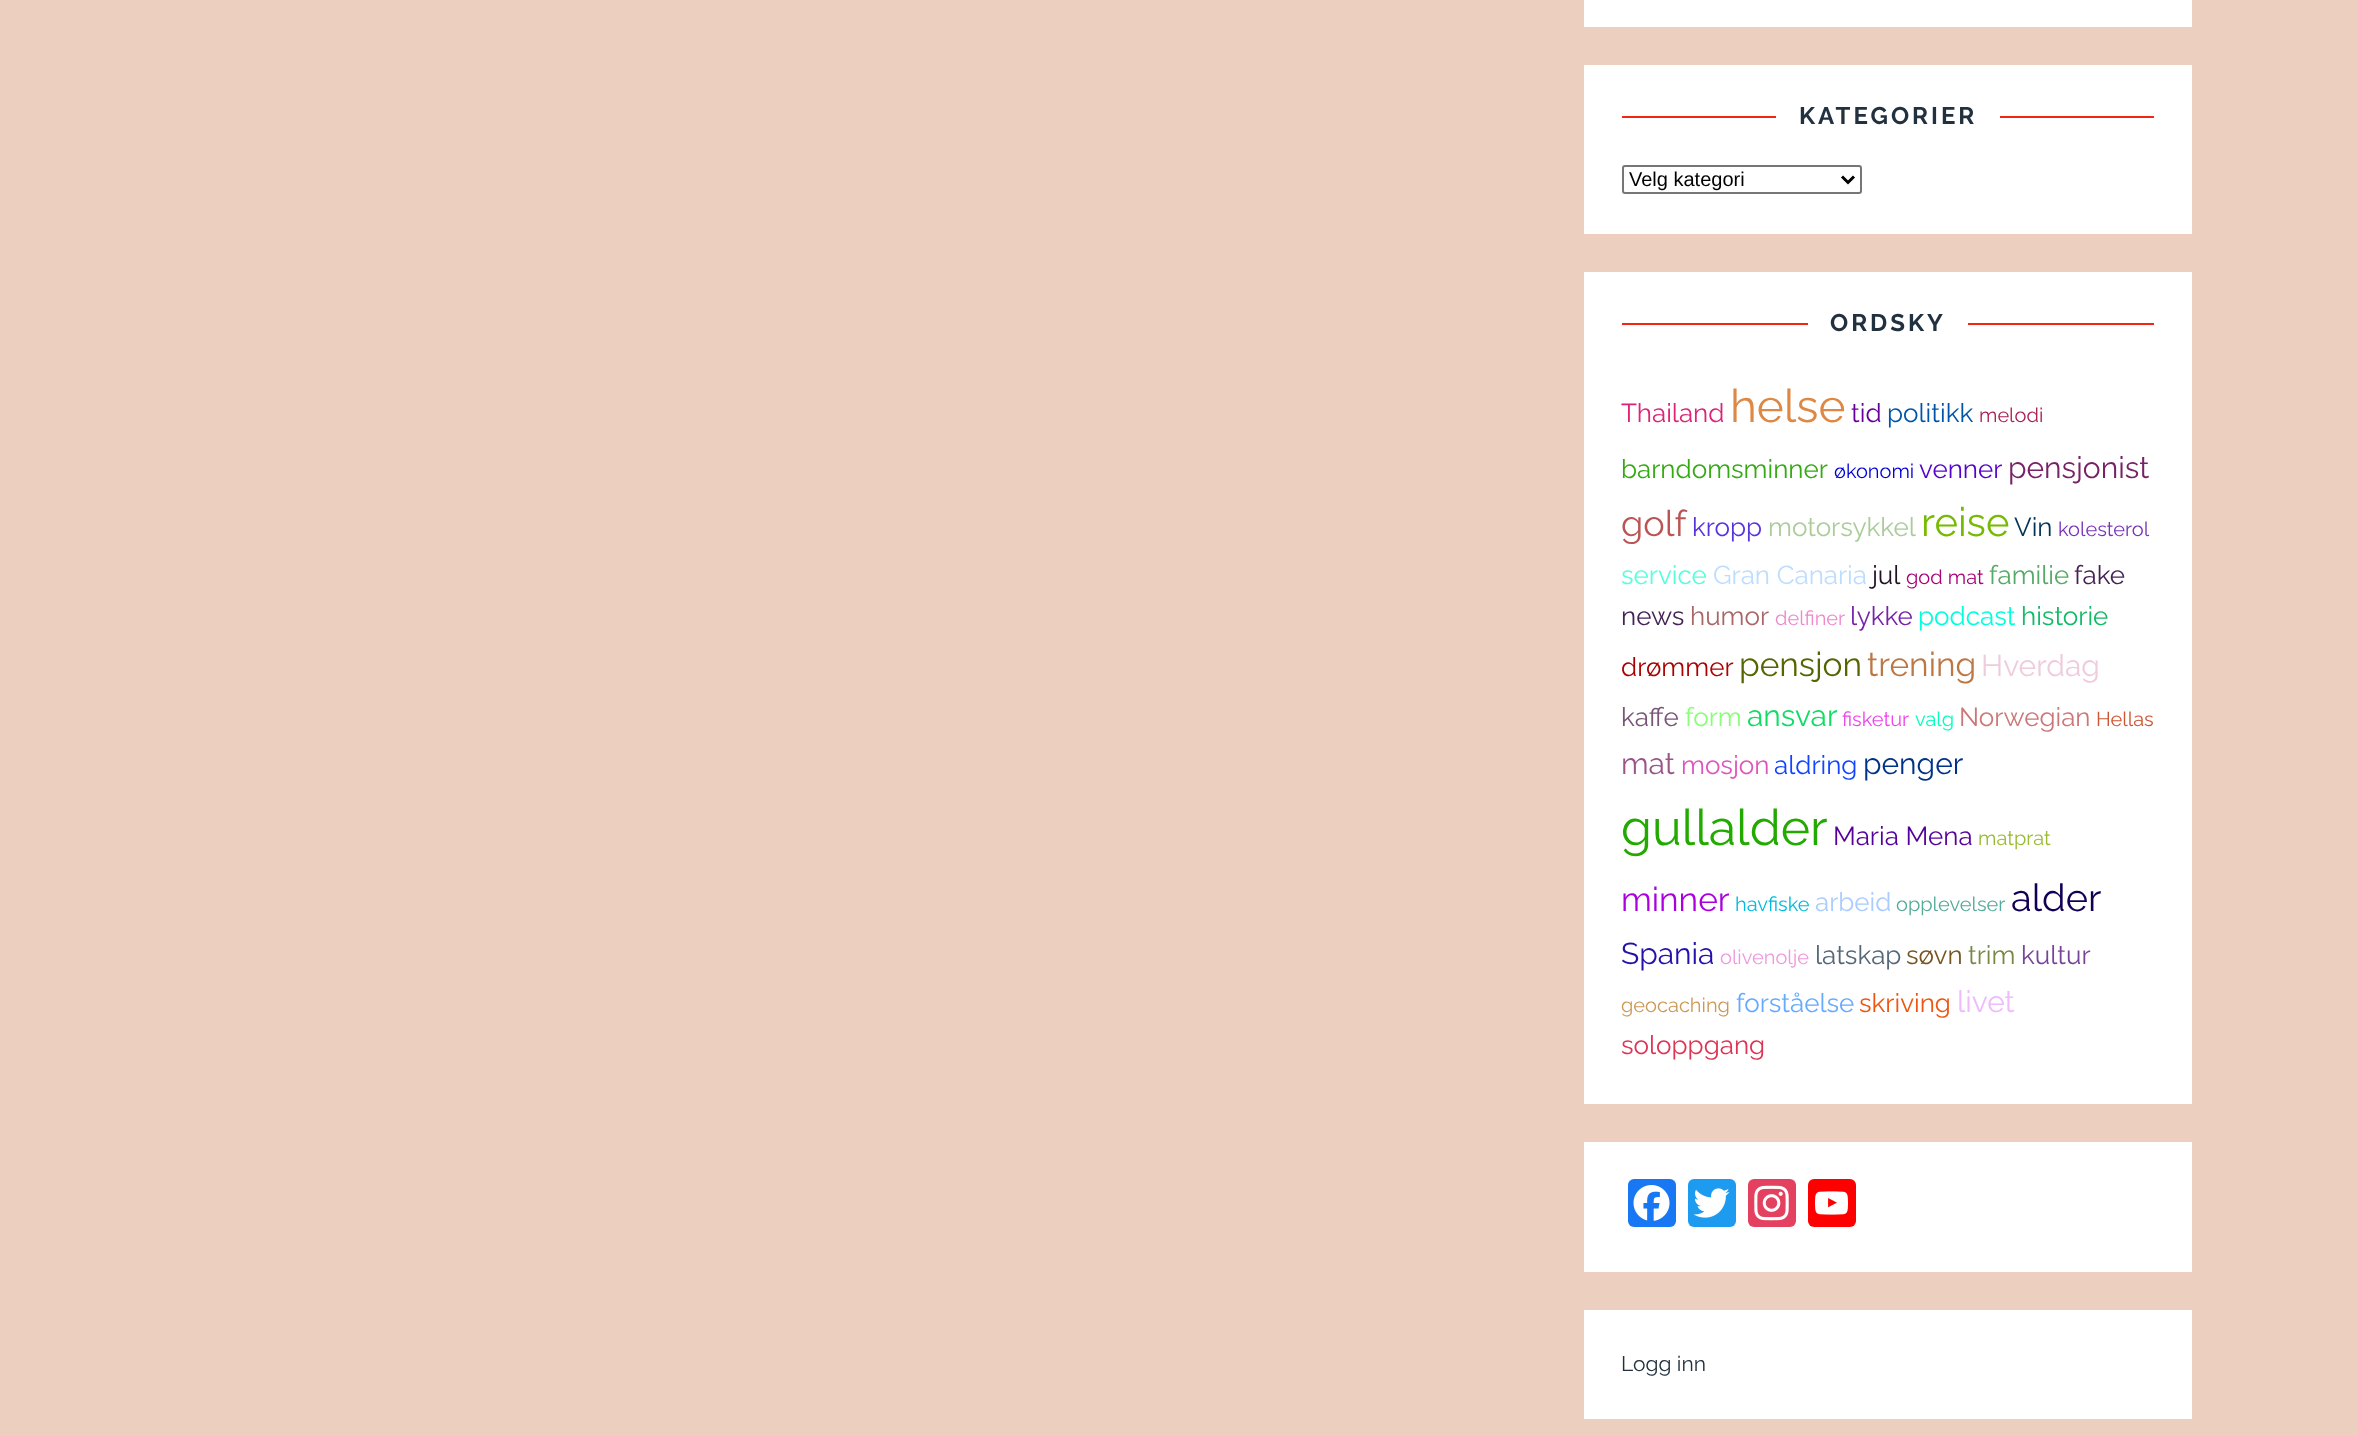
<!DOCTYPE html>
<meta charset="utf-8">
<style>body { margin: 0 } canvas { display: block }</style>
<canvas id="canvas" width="2358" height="1436"></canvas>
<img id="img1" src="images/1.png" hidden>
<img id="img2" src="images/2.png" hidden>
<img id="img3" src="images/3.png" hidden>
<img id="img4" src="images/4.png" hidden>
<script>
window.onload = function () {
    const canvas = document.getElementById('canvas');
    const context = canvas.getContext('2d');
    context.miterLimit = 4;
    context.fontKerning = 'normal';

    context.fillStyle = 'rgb(237, 207, 192)';
    context.fillRect(0, 0, 2358, 1436);
    context.fillStyle = 'rgb(255, 255, 255)';
    context.fillRect(1584, 0, 608, 27);
    context.fillRect(1584, 65, 608, 169);
    context.fillStyle = 'rgb(242, 38, 18)';
    context.fillRect(1622, 116, 154, 2);
    context.fillRect(2000, 116, 154, 2);
    context.beginPath();
    context.roundRect(1623, 166, 238, 27, 2);
    context.strokeStyle = 'rgb(118, 118, 118)';
    context.lineWidth = 2;
    context.stroke();
    context.beginPath();
    context.moveTo(1842, 176.5);
    context.lineTo(1848, 182.5);
    context.lineTo(1854, 176.5);
    context.strokeStyle = 'rgb(0, 0, 0)';
    context.lineWidth = 3;
    context.stroke();
    context.fillStyle = 'rgb(255, 255, 255)';
    context.fillRect(1584, 272, 608, 832);
    context.fillStyle = 'rgb(242, 38, 18)';
    context.fillRect(1622, 323, 186, 2);
    context.fillRect(1968, 323, 186, 2);
    context.fillStyle = 'rgb(255, 255, 255)';
    context.fillRect(1584, 1142, 608, 130);
    context.fillStyle = 'rgb(24, 119, 242)';
    context.beginPath();
    context.roundRect(1628, 1179, 48, 48, 6);
    context.fill();
    context.drawImage(document.getElementById('img1'), 1633, 1185, 37, 36);
    context.fillStyle = 'rgb(29, 155, 240)';
    context.beginPath();
    context.roundRect(1688, 1179, 48, 48, 6);
    context.fill();
    context.drawImage(document.getElementById('img2'), 1693, 1188, 37, 30);
    context.fillStyle = 'rgb(228, 64, 95)';
    context.beginPath();
    context.roundRect(1748, 1179, 48, 48, 6);
    context.fill();
    context.drawImage(document.getElementById('img3'), 1754, 1185, 35, 36);
    context.fillStyle = 'rgb(255, 0, 0)';
    context.beginPath();
    context.roundRect(1808, 1179, 48, 48, 6);
    context.fill();
    context.drawImage(document.getElementById('img4'), 1815, 1191, 33, 24);
    context.fillStyle = 'rgb(255, 255, 255)';
    context.fillRect(1584, 1310, 608, 109);
    context.letterSpacing = '3px';
    context.font = 'bold 24px Raleway';
    context.fillStyle = 'rgb(34, 49, 63)';
    context.fillText('KATEGORIER', 1799, 124);
    context.letterSpacing = '0px';
    context.font = '20px Liberation Sans';
    context.fillStyle = 'rgb(0, 0, 0)';
    context.fillText('Velg kategori', 1629, 186);
    context.letterSpacing = '3px';
    context.font = 'bold 24px Raleway';
    context.fillStyle = 'rgb(34, 49, 63)';
    context.fillText('ORDSKY', 1830, 331);
    context.letterSpacing = '0px';
    context.font = '26px Raleway';
    context.fillStyle = 'rgb(221, 34, 119)';
    context.fillText('Thailand', 1621, 422);
    context.font = '46px Raleway';
    context.fillStyle = 'rgb(221, 136, 68)';
    context.fillText('helse', 1730, 422);
    context.font = '26px Raleway';
    context.fillStyle = 'rgb(102, 0, 153)';
    context.fillText('tid', 1851, 422);
    context.fillStyle = 'rgb(0, 85, 170)';
    context.fillText('politikk', 1887, 422);
    context.font = '20px Raleway';
    context.fillStyle = 'rgb(170, 34, 85)';
    context.fillText('melodi', 1979, 422);
    context.font = '26px Raleway';
    context.fillStyle = 'rgb(51, 170, 17)';
    context.fillText('barndomsminner', 1621, 478);
    context.font = '20px Raleway';
    context.fillStyle = 'rgb(0, 0, 221)';
    context.fillText('økonomi', 1834, 478);
    context.font = '26px Raleway';
    context.fillStyle = 'rgb(85, 0, 204)';
    context.fillText('venner', 1919, 478);
    context.font = '30px Raleway';
    context.fillStyle = 'rgb(119, 34, 102)';
    context.fillText('pensjonist', 2008, 478);
    context.font = '36px Raleway';
    context.fillStyle = 'rgb(187, 85, 85)';
    context.fillText('golf', 1621, 536);
    context.font = '26px Raleway';
    context.fillStyle = 'rgb(85, 51, 221)';
    context.fillText('kropp', 1692, 536);
    context.fillStyle = 'rgb(170, 204, 153)';
    context.fillText('motorsykkel', 1768, 536);
    context.font = '40px Raleway';
    context.fillStyle = 'rgb(119, 187, 0)';
    context.fillText('reise', 1921, 536);
    context.font = '26px Raleway';
    context.fillStyle = 'rgb(0, 51, 85)';
    context.fillText('Vin', 2014, 536);
    context.font = '20px Raleway';
    context.fillStyle = 'rgb(119, 51, 187)';
    context.fillText('kolesterol', 2058, 536);
    context.font = '26px Raleway';
    context.fillStyle = 'rgb(85, 255, 221)';
    context.fillText('service', 1621, 584);
    context.fillStyle = 'rgb(187, 221, 255)';
    context.fillText('Gran Canaria', 1713, 584);
    context.fillStyle = 'rgb(34, 17, 34)';
    context.fillText('jul', 1872, 584);
    context.font = '20px Raleway';
    context.fillStyle = 'rgb(170, 0, 119)';
    context.fillText('god mat', 1906, 584);
    context.font = '26px Raleway';
    context.fillStyle = 'rgb(85, 170, 102)';
    context.fillText('familie', 1989, 584);
    context.fillStyle = 'rgb(68, 34, 85)';
    context.fillText('fake', 2074, 584);
    context.fillText('news', 1621, 625);
    context.fillStyle = 'rgb(170, 102, 102)';
    context.fillText('humor', 1690, 625);
    context.font = '20px Raleway';
    context.fillStyle = 'rgb(238, 136, 204)';
    context.fillText('delfiner', 1775, 625);
    context.font = '26px Raleway';
    context.fillStyle = 'rgb(119, 34, 170)';
    context.fillText('lykke', 1850, 625);
    context.fillStyle = 'rgb(0, 255, 221)';
    context.fillText('podcast', 1918, 625);
    context.fillStyle = 'rgb(17, 187, 102)';
    context.fillText('historie', 2021, 625);
    context.fillStyle = 'rgb(170, 0, 0)';
    context.fillText('drømmer', 1621, 676);
    context.font = '33.5px Raleway';
    context.fillStyle = 'rgb(85, 102, 0)';
    context.fillText('pensjon', 1739, 676);
    context.fillStyle = 'rgb(187, 119, 68)';
    context.fillText('trening', 1867, 676);
    context.font = '30px Raleway';
    context.fillStyle = 'rgb(238, 204, 221)';
    context.fillText('Hverdag', 1981, 676);
    context.font = '26px Raleway';
    context.fillStyle = 'rgb(119, 85, 119)';
    context.fillText('kaffe', 1621, 726);
    context.fillStyle = 'rgb(136, 255, 119)';
    context.fillText('form', 1685, 726);
    context.font = '30px Raleway';
    context.fillStyle = 'rgb(17, 221, 102)';
    context.fillText('ansvar', 1747, 726);
    context.font = '20px Raleway';
    context.fillStyle = 'rgb(238, 68, 238)';
    context.fillText('fisketur', 1842, 726);
    context.fillStyle = 'rgb(0, 255, 187)';
    context.fillText('valg', 1915, 726);
    context.font = '26px Raleway';
    context.fillStyle = 'rgb(204, 119, 119)';
    context.fillText('Norwegian', 1959, 726);
    context.font = '20px Raleway';
    context.fillStyle = 'rgb(204, 85, 51)';
    context.fillText('Hellas', 2096, 726);
    context.font = '30px Raleway';
    context.fillStyle = 'rgb(153, 85, 136)';
    context.fillText('mat', 1621, 774);
    context.font = '26px Raleway';
    context.fillStyle = 'rgb(221, 85, 187)';
    context.fillText('mosjon', 1681, 774);
    context.fillStyle = 'rgb(17, 68, 255)';
    context.fillText('aldring', 1774, 774);
    context.font = '30px Raleway';
    context.fillStyle = 'rgb(0, 51, 136)';
    context.fillText('penger', 1863, 774);
    context.font = '50px Raleway';
    context.fillStyle = 'rgb(34, 170, 0)';
    context.fillText('gullalder', 1621, 845);
    context.font = '26px Raleway';
    context.fillStyle = 'rgb(85, 0, 153)';
    context.fillText('Maria Mena', 1833, 845);
    context.font = '20px Raleway';
    context.fillStyle = 'rgb(153, 187, 51)';
    context.fillText('matprat', 1978, 845);
    context.font = '33.5px Raleway';
    context.fillStyle = 'rgb(170, 0, 221)';
    context.fillText('minner', 1621, 911);
    context.font = '20px Raleway';
    context.fillStyle = 'rgb(0, 187, 221)';
    context.fillText('havfiske', 1735, 911);
    context.font = '26px Raleway';
    context.fillStyle = 'rgb(170, 204, 255)';
    context.fillText('arbeid', 1815, 911);
    context.font = '20px Raleway';
    context.fillStyle = 'rgb(85, 170, 153)';
    context.fillText('opplevelser', 1896, 911);
    context.font = '38px Raleway';
    context.fillStyle = 'rgb(17, 0, 85)';
    context.fillText('alder', 2011, 911);
    context.font = '30px Raleway';
    context.fillStyle = 'rgb(34, 17, 170)';
    context.fillText('Spania', 1621, 964);
    context.font = '20px Raleway';
    context.fillStyle = 'rgb(238, 153, 221)';
    context.fillText('olivenolje', 1720, 964);
    context.font = '26px Raleway';
    context.fillStyle = 'rgb(85, 102, 119)';
    context.fillText('latskap', 1815, 964);
    context.fillStyle = 'rgb(119, 85, 34)';
    context.fillText('søvn', 1906, 964);
    context.fillStyle = 'rgb(119, 136, 68)';
    context.fillText('trim', 1968, 964);
    context.fillStyle = 'rgb(119, 68, 153)';
    context.fillText('kultur', 2021, 964);
    context.font = '20px Raleway';
    context.fillStyle = 'rgb(204, 153, 85)';
    context.fillText('geocaching', 1621, 1012);
    context.font = '26px Raleway';
    context.fillStyle = 'rgb(102, 170, 255)';
    context.fillText('forståelse', 1736, 1012);
    context.fillStyle = 'rgb(238, 85, 17)';
    context.fillText('skriving', 1859, 1012);
    context.font = '30px Raleway';
    context.fillStyle = 'rgb(238, 187, 255)';
    context.fillText('livet', 1957, 1012);
    context.font = '26px Raleway';
    context.fillStyle = 'rgb(221, 51, 85)';
    context.fillText('soloppgang', 1621, 1054);
    context.font = '21px Raleway';
    context.fillStyle = 'rgb(34, 49, 63)';
    context.fillText('Logg inn', 1621, 1371);
};
</script>
